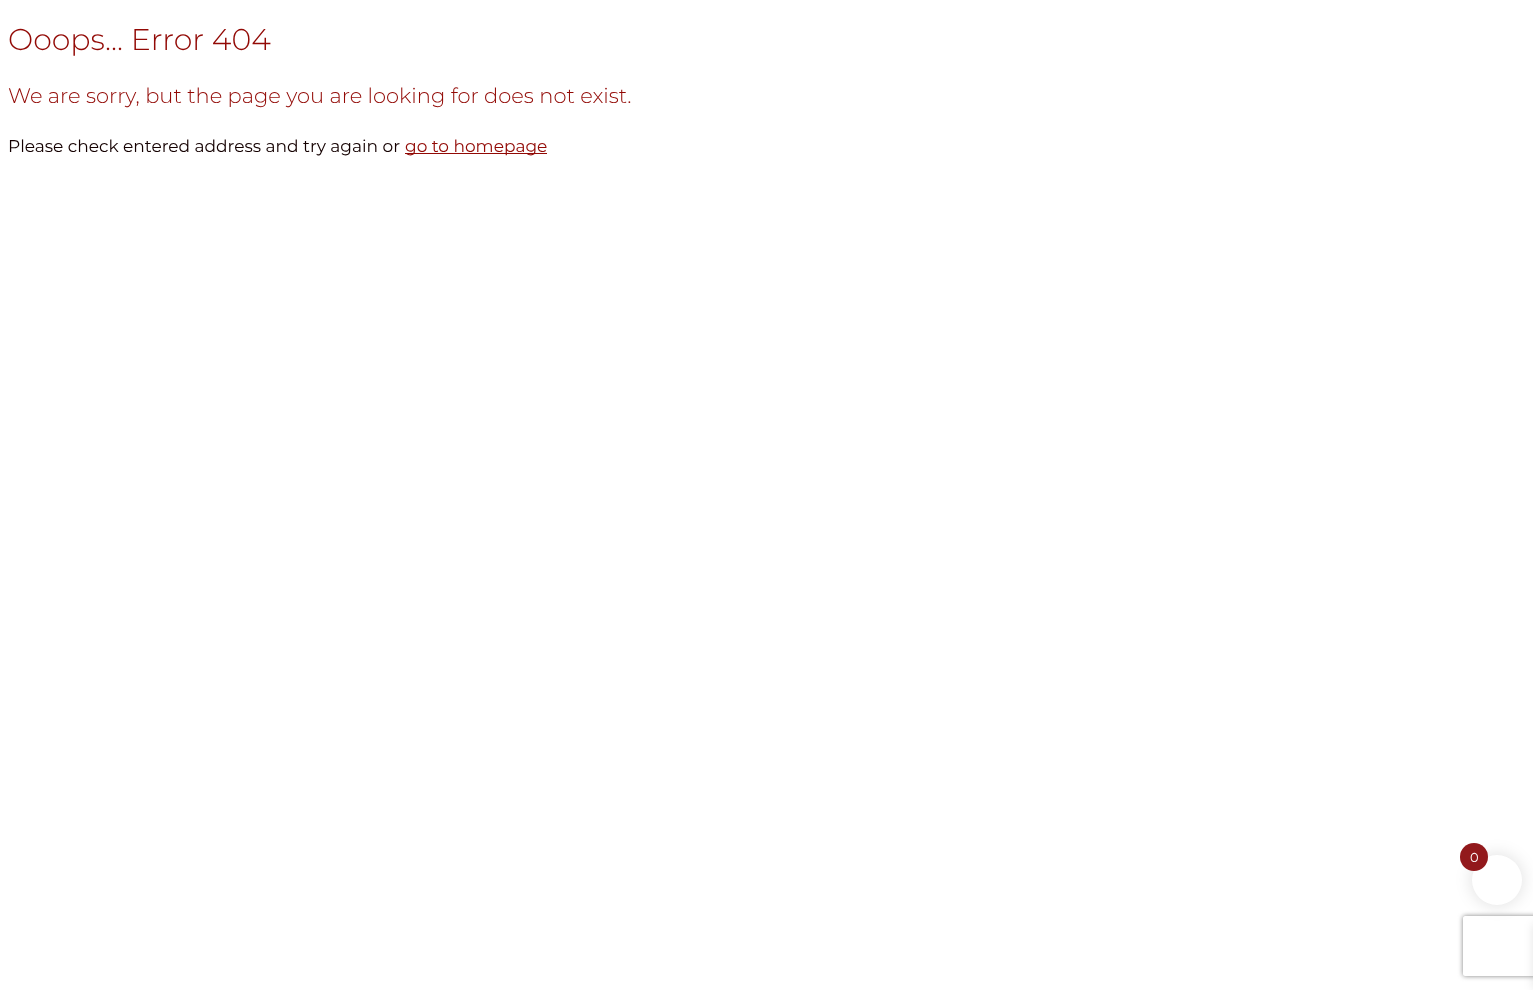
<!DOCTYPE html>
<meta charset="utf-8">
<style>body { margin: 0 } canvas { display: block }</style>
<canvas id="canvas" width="1533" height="990"></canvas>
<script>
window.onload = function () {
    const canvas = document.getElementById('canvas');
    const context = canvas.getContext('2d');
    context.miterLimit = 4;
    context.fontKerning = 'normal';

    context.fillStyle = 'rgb(255, 255, 255)';
    context.fillRect(0, 0, 1533, 990);
    context.fillStyle = 'rgb(146, 9, 5)';
    context.fillRect(405, 153, 142, 1);
    context.fillStyle = 'rgba(0, 0, 0, 0.1)';
    context.filter = 'blur(7.5px)';
    context.beginPath();
    context.roundRect(1470, 853, 54, 54, 27);
    context.fill();
    context.filter = 'none';
    context.fillStyle = 'rgb(255, 255, 255)';
    context.beginPath();
    context.arc(1497, 880, 25, 0, 2 * Math.PI);
    context.fill();
    context.fillStyle = 'rgb(146, 25, 28)';
    context.beginPath();
    context.arc(1474, 857, 14, 0, 2 * Math.PI);
    context.fill();
    context.fillStyle = 'rgba(0, 0, 0, 0.1)';
    context.filter = 'blur(5px)';
    context.beginPath();
    context.rect(1533, 924, 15, 65);
    context.fill();
    context.filter = 'none';
    context.save();
    context.beginPath();
    context.moveTo(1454, 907);
    context.lineTo(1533, 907);
    context.lineTo(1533, 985);
    context.lineTo(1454, 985);
    context.closePath();
    context.moveTo(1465, 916);
    context.lineTo(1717, 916);
    context.bezierCurveTo(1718, 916, 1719, 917, 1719, 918);
    context.lineTo(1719, 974);
    context.bezierCurveTo(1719, 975, 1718, 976, 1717, 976);
    context.lineTo(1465, 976);
    context.bezierCurveTo(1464, 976, 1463, 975, 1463, 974);
    context.lineTo(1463, 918);
    context.bezierCurveTo(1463, 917, 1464, 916, 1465, 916);
    context.closePath();
    context.clip('evenodd');
    context.fillStyle = 'rgb(128, 128, 128)';
    context.filter = 'blur(2.5px)';
    context.beginPath();
    context.roundRect(1463, 916, 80, 60, 2);
    context.fill();
    context.filter = 'none';
    context.restore();
    context.font = '300 30px Montserrat';
    context.fillStyle = 'rgb(146, 9, 5)';
    context.fillText('Ooops... Error 404', 8, 50);
    context.font = '300 21px Montserrat';
    context.fillText('We are sorry, but the page you are looking for does not exist.', 8, 103);
    context.font = '17px Montserrat';
    context.fillStyle = 'rgb(20, 0, 0)';
    context.fillText('Please check entered address and try again or', 8, 152);
    context.fillStyle = 'rgb(146, 9, 5)';
    context.fillText('go to homepage', 405, 152);
    context.font = '13px Montserrat';
    context.fillStyle = 'rgb(255, 255, 255)';
    context.fillText('0', 1470, 862);
};
</script>
